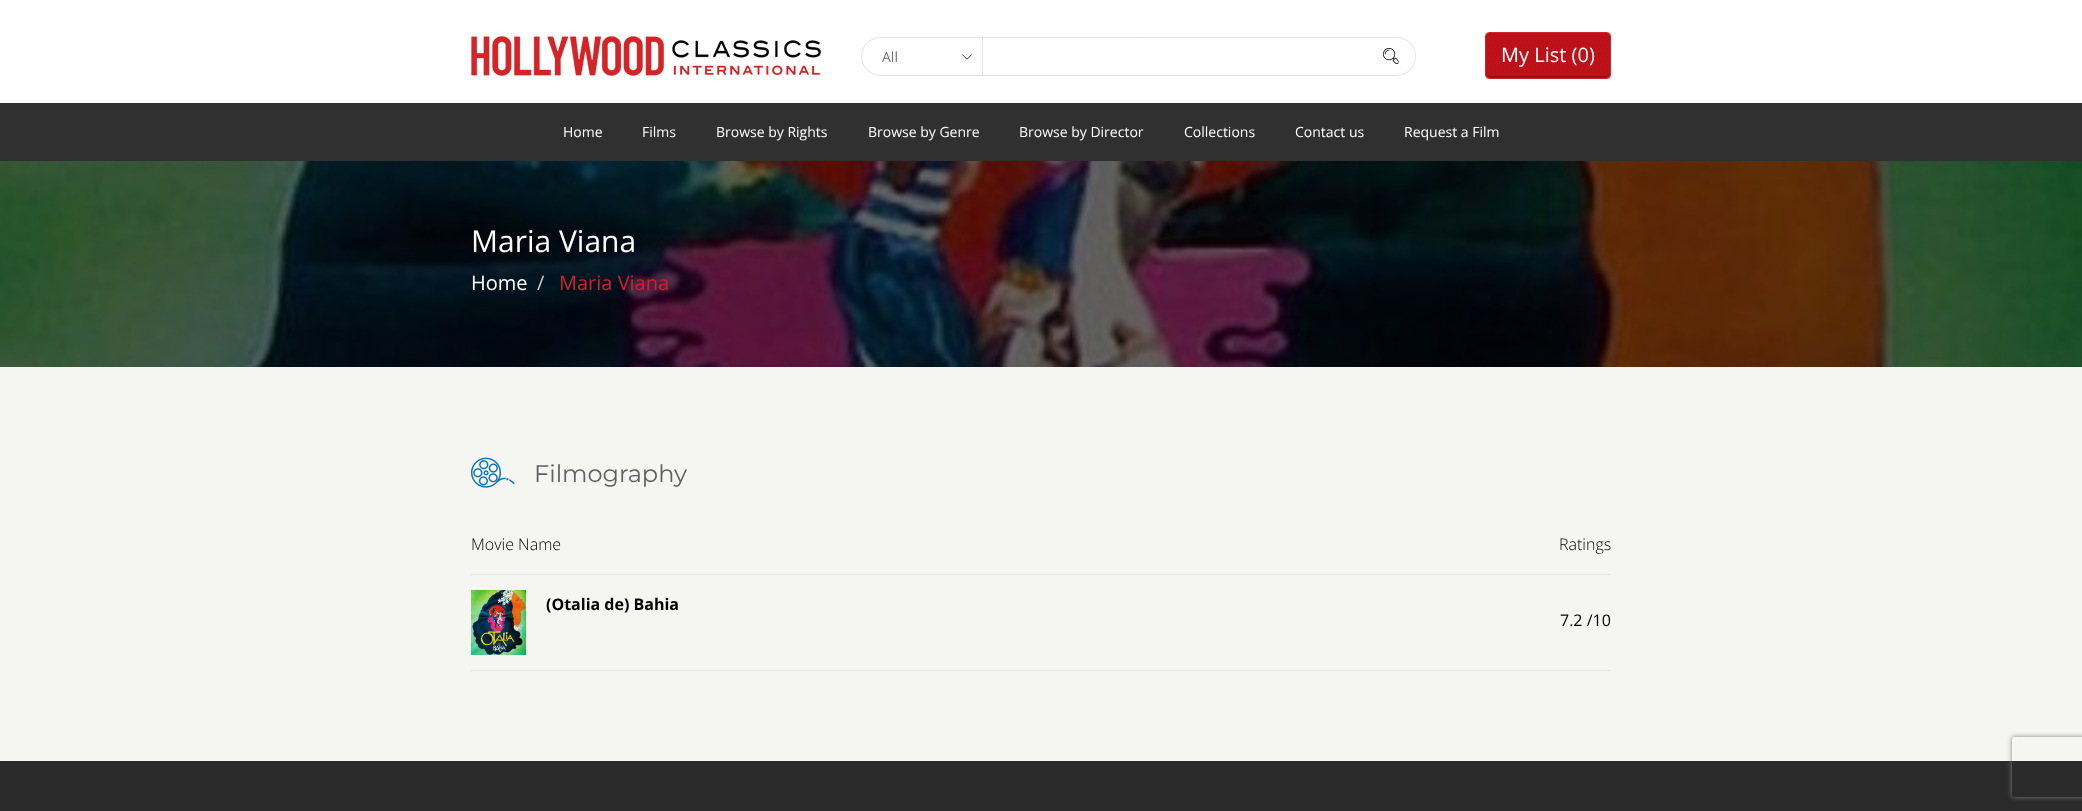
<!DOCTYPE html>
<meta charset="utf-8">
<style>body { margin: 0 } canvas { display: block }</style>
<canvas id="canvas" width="2082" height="811"></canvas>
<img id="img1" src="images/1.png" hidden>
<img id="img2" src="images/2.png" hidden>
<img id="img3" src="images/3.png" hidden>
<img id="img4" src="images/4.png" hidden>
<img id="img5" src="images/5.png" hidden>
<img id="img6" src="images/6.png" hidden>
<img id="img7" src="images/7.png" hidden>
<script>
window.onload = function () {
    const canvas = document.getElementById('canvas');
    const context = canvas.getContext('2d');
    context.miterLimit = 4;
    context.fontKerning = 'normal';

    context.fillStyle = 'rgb(245, 245, 241)';
    context.fillRect(0, 0, 2082, 811);
    context.fillStyle = 'rgb(255, 255, 255)';
    context.fillRect(0, 0, 2082, 103);
    context.drawImage(document.getElementById('img1'), 471, 36, 350, 40);
    context.beginPath();
    context.roundRect(861.5, 37.5, 554, 38, 19);
    context.strokeStyle = 'rgb(227, 227, 227)';
    context.stroke();
    context.fillStyle = 'rgb(227, 227, 227)';
    context.fillRect(982, 38, 1, 37);
    context.drawImage(document.getElementById('img2'), 962, 54, 10, 6);
    context.drawImage(document.getElementById('img3'), 1383, 48, 17, 16);
    context.fillStyle = 'rgb(193, 18, 25)';
    context.beginPath();
    context.roundRect(1486, 33, 124, 45, 3);
    context.fill();
    context.drawImage(document.getElementById('img4'), 1486, 33, 124, 45);
    context.fillStyle = 'rgba(0, 0, 0, 0.15)';
    context.beginPath();
    context.moveTo(1486, 73);
    context.lineTo(1486, 75);
    context.bezierCurveTo(1486, 77, 1487, 78, 1489, 78);
    context.lineTo(1607, 78);
    context.bezierCurveTo(1609, 78, 1610, 77, 1610, 75);
    context.lineTo(1610, 73);
    context.bezierCurveTo(1610, 75, 1609, 76, 1607, 76);
    context.lineTo(1489, 76);
    context.bezierCurveTo(1487, 76, 1486, 75, 1486, 73);
    context.closePath();
    context.fill();
    context.beginPath();
    context.roundRect(1485.5, 32.5, 125, 46, 3.5);
    context.strokeStyle = 'rgb(210, 35, 42)';
    context.stroke();
    context.fillStyle = 'rgb(48, 48, 48)';
    context.fillRect(0, 103, 2082, 58);
    context.drawImage(document.getElementById('img5'), 0, 161, 2082, 206);
    context.drawImage(document.getElementById('img6'), 471, 457, 44, 31);
    context.fillStyle = 'rgb(227, 227, 227)';
    context.fillRect(471, 574, 1140, 1);
    context.fillRect(471, 670, 1140, 1);
    context.drawImage(document.getElementById('img7'), 471, 590, 55, 65);
    context.fillStyle = 'rgb(43, 43, 43)';
    context.fillRect(0, 761, 2082, 50);
    context.save();
    context.beginPath();
    context.moveTo(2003, 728);
    context.lineTo(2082, 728);
    context.lineTo(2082, 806);
    context.lineTo(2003, 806);
    context.closePath();
    context.moveTo(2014, 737);
    context.lineTo(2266, 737);
    context.bezierCurveTo(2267, 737, 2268, 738, 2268, 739);
    context.lineTo(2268, 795);
    context.bezierCurveTo(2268, 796, 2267, 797, 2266, 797);
    context.lineTo(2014, 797);
    context.bezierCurveTo(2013, 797, 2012, 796, 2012, 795);
    context.lineTo(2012, 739);
    context.bezierCurveTo(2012, 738, 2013, 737, 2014, 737);
    context.closePath();
    context.clip('evenodd');
    context.fillStyle = 'rgb(128, 128, 128)';
    context.filter = 'blur(2.5px)';
    context.beginPath();
    context.roundRect(2012, 737, 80, 60, 2);
    context.fill();
    context.filter = 'none';
    context.restore();
    context.font = '14px Open Sans';
    context.fillStyle = 'rgb(114, 114, 114)';
    context.fillText('All', 882, 62);
    context.font = '20px Open Sans';
    context.fillStyle = 'rgb(255, 255, 255)';
    context.fillText('My List (0)', 1501, 62);
    context.font = '14px Open Sans';
    context.fillText('Home', 563, 137);
    context.fillText('Films', 642, 137);
    context.fillText('Browse by Rights', 716, 137);
    context.fillText('Browse by Genre', 868, 137);
    context.fillText('Browse by Director', 1019, 137);
    context.fillText('Collections', 1184, 137);
    context.fillText('Contact us', 1295, 137);
    context.fillText('Request a Film', 1404, 137);
    context.font = '30px Open Sans';
    context.fillText('Maria Viana', 471, 252);
    context.font = '20px Open Sans';
    context.fillText('Home', 471, 290);
    context.fillStyle = 'rgb(204, 204, 204)';
    context.fillText('/', 537, 290);
    context.fillStyle = 'rgb(210, 35, 42)';
    context.fillText('Maria Viana', 559, 290);
    context.font = '24px Montserrat';
    context.fillStyle = 'rgb(96, 96, 96)';
    context.fillText('Filmography', 534, 482);
    context.font = '300 16px Open Sans';
    context.fillStyle = 'rgb(0, 0, 0)';
    context.fillText('Movie Name', 471, 550);
    context.fillText('Ratings', 1559, 550);
    context.font = 'bold 16px Open Sans';
    context.fillText('(Otalia de) Bahia', 546, 610);
    context.font = '16px Open Sans';
    context.fillText('7.2 /10', 1560, 626);
};
</script>
